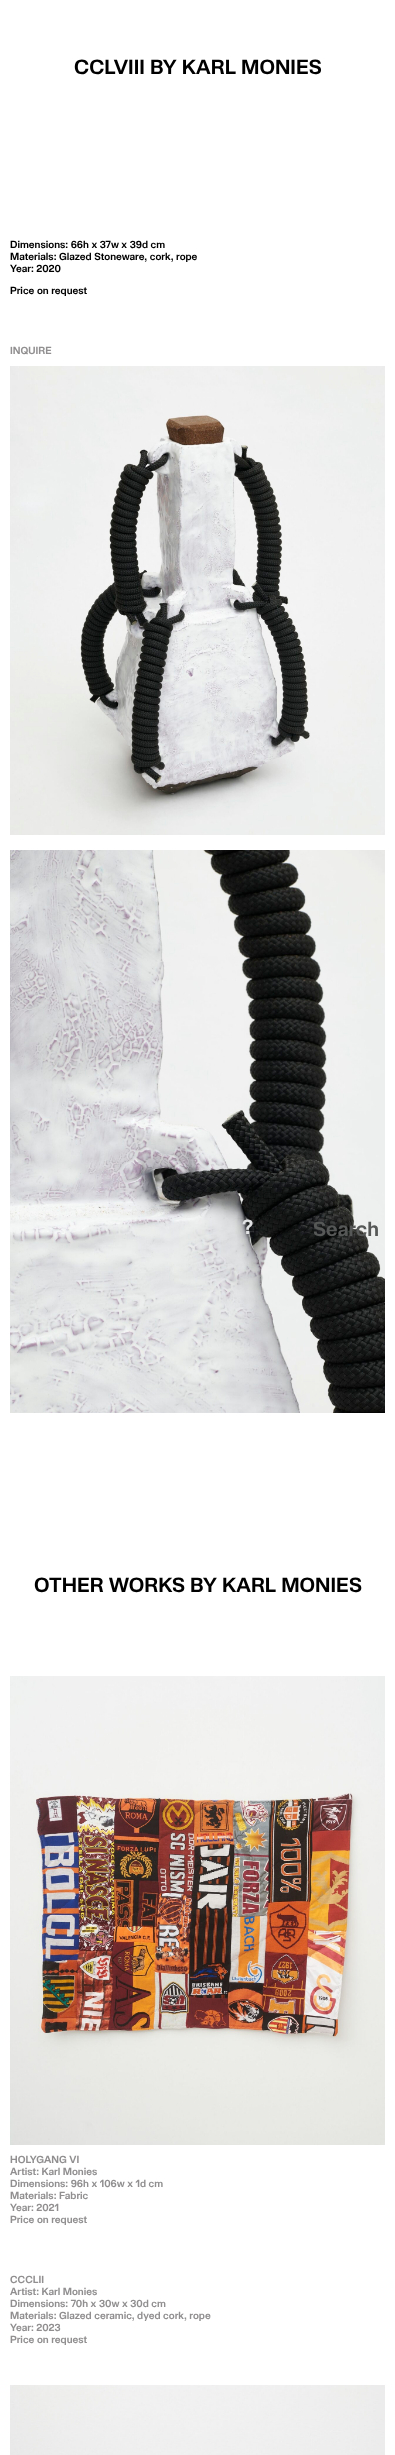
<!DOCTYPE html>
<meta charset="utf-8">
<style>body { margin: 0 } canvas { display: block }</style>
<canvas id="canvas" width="395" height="2455"></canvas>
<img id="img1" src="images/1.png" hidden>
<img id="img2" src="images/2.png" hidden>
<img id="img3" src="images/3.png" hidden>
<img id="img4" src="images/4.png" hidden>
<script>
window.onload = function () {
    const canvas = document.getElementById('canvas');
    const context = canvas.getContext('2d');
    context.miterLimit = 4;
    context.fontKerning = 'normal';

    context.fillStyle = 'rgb(255, 255, 255)';
    context.fillRect(0, 0, 395, 2455);
    context.drawImage(document.getElementById('img1'), 10, 366, 375, 469);
    context.drawImage(document.getElementById('img2'), 10, 850, 375, 563);
    context.drawImage(document.getElementById('img3'), 10, 1676, 375, 469);
    context.drawImage(document.getElementById('img4'), 10, 2385, 375, 70);
    context.font = '600 20px "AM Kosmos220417"';
    context.fillStyle = 'rgb(0, 0, 0)';
    context.fillText('CCLVIII BY KARL MONIES', 74, 74);
    context.font = '600 10px "AM Kosmos220417"';
    context.fillText('Dimensions: 66h x 37w x 39d cm', 10, 248);
    context.fillText('Materials: Glazed Stoneware, cork, rope', 10, 260);
    context.fillText('Year: 2020', 10, 272);
    context.fillText('Price on request', 10, 294);
    context.fillStyle = 'rgb(145, 143, 143)';
    context.fillText('INQUIRE', 10, 354);
    context.font = '600 20px "AM Kosmos220417"';
    context.fillStyle = 'rgb(0, 0, 0)';
    context.fillText('OTHER WORKS BY KARL MONIES', 34, 1592);
    context.font = '600 10px "AM Kosmos220417"';
    context.fillStyle = 'rgb(145, 143, 143)';
    context.fillText('HOLYGANG VI', 10, 2163);
    context.fillText('Artist: Karl Monies', 10, 2175);
    context.fillText('Dimensions: 96h x 106w x 1d cm', 10, 2187);
    context.fillText('Materials: Fabric', 10, 2199);
    context.fillText('Year: 2021', 10, 2211);
    context.fillText('Price on request', 10, 2223);
    context.fillText('CCCLII', 10, 2283);
    context.fillText('Artist: Karl Monies', 10, 2295);
    context.fillText('Dimensions: 70h x 30w x 30d cm', 10, 2307);
    context.fillText('Materials: Glazed ceramic, dyed cork, rope', 10, 2319);
    context.fillText('Year: 2023', 10, 2331);
    context.fillText('Price on request', 10, 2343);
    context.font = '600 20px "AM Kosmos220417"';
    context.fillStyle = 'rgb(224, 226, 227)';
    context.fillText('?', 242, 1234);
    context.fillStyle = 'rgb(86, 88, 87)';
    context.fillText('Search', 313, 1236);
};
</script>
